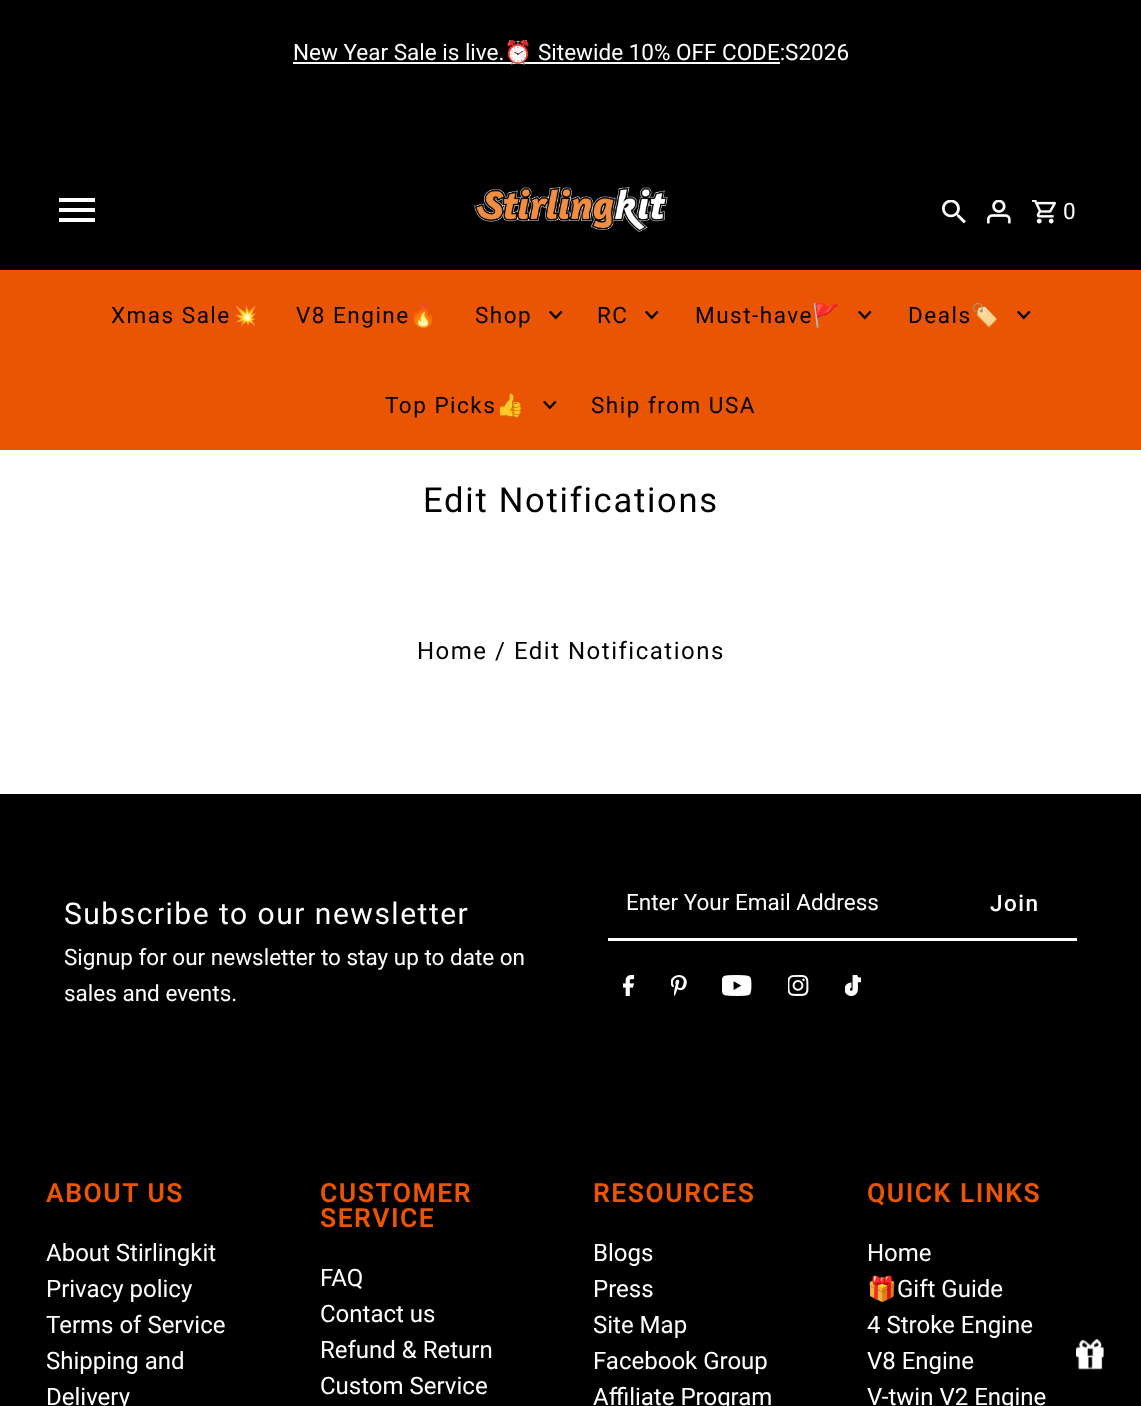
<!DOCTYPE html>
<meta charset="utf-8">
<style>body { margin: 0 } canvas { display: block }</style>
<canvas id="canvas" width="1141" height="1406"></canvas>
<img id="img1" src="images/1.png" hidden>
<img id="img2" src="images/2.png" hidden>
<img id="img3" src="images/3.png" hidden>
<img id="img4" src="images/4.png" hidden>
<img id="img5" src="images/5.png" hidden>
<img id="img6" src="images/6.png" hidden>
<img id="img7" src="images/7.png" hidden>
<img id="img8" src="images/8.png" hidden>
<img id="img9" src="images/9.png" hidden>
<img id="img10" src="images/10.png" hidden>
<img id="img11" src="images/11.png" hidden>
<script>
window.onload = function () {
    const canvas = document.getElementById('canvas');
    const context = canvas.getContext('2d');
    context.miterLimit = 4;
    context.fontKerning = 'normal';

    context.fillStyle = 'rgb(255, 255, 255)';
    context.fillRect(0, 0, 1141, 1406);
    context.fillStyle = 'rgb(0, 0, 0)';
    context.fillRect(0, 0, 1141, 270);
    context.fillStyle = 'rgb(255, 255, 255)';
    context.fillRect(293, 62, 487, 2);
    context.fillRect(59, 218, 36, 4);
    context.fillRect(59, 208, 36, 4);
    context.fillRect(59, 198, 36, 4);
    context.drawImage(document.getElementById('img1'), 474, 187, 194, 45);
    context.drawImage(document.getElementById('img2'), 942, 200, 24, 24);
    context.drawImage(document.getElementById('img3'), 987, 200, 24, 24);
    context.drawImage(document.getElementById('img4'), 1032, 200, 24, 24);
    context.fillStyle = 'rgb(234, 85, 4)';
    context.fillRect(0, 270, 1141, 180);
    context.drawImage(document.getElementById('img5'), 549, 311, 14, 9);
    context.drawImage(document.getElementById('img5'), 645, 311, 14, 9);
    context.drawImage(document.getElementById('img5'), 858, 311, 14, 9);
    context.drawImage(document.getElementById('img5'), 1017, 311, 14, 9);
    context.drawImage(document.getElementById('img5'), 543, 401, 14, 9);
    context.fillStyle = 'rgb(0, 0, 0)';
    context.fillRect(0, 794, 1141, 612);
    context.fillStyle = 'rgb(255, 255, 255)';
    context.fillRect(608, 938, 469, 3);
    context.drawImage(document.getElementById('img6'), 623, 975, 12, 21);
    context.drawImage(document.getElementById('img7'), 671, 975, 16, 21);
    context.drawImage(document.getElementById('img8'), 722, 975, 30, 21);
    context.drawImage(document.getElementById('img9'), 788, 975, 21, 21);
    context.drawImage(document.getElementById('img10'), 845, 975, 16, 21);
    context.drawImage(document.getElementById('img11'), 1076, 1339, 28, 31);
    context.font = '22.5px Roboto';
    context.fillText('New Year Sale is live.', 293, 60);
    context.font = '22.5px Noto Color Emoji';
    context.fillText('⏰', 504, 60);
    context.font = '22.5px Roboto';
    context.fillText('Sitewide 10% OFF CODE:S2026', 538, 60);
    context.letterSpacing = '1.5px';
    context.fillText('0', 1063, 219);
    context.fillStyle = 'rgb(0, 0, 0)';
    context.fillText('Xmas Sale', 111, 323);
    context.font = '22.5px Noto Color Emoji';
    context.fillText('💥', 231, 323);
    context.font = '22.5px Roboto';
    context.fillText('V8 Engine', 296, 323);
    context.font = '22.5px Noto Color Emoji';
    context.fillText('🔥', 409, 323);
    context.font = '22.5px Roboto';
    context.fillText('Shop', 475, 323);
    context.fillText('RC', 597, 323);
    context.fillText('Must-have', 695, 323);
    context.font = '22.5px Noto Color Emoji';
    context.fillText('🚩', 812, 323);
    context.font = '22.5px Roboto';
    context.fillText('Deals', 908, 323);
    context.font = '22.5px Noto Color Emoji';
    context.fillText('🏷️', 971, 323);
    context.font = '22.5px Roboto';
    context.fillText('Top Picks', 385, 413);
    context.font = '22.5px Noto Color Emoji';
    context.fillText('👍', 496, 413);
    context.font = '22.5px Roboto';
    context.fillText('Ship from USA', 591, 413);
    context.letterSpacing = '1.75px';
    context.font = '34.5px Roboto';
    context.fillText('Edit Notifications', 423, 512);
    context.letterSpacing = '1.5px';
    context.font = '24px Roboto';
    context.fillText('Home / Edit Notifications', 417, 659);
    context.font = '30px Roboto';
    context.fillStyle = 'rgb(255, 255, 255)';
    context.fillText('Subscribe to our newsletter', 64, 924);
    context.letterSpacing = '0px';
    context.font = '22.5px Roboto';
    context.fillText('Signup for our newsletter to stay up to date on', 64, 965);
    context.fillText('sales and events.', 64, 1001);
    context.fillText('Enter Your Email Address', 626, 910);
    context.letterSpacing = '1.5px';
    context.font = '500 22.5px Roboto';
    context.fillText('Join', 990, 911);
    context.font = '600 26.5px Roboto';
    context.fillStyle = 'rgb(234, 85, 4)';
    context.fillText('ABOUT US', 46, 1202);
    context.letterSpacing = '0px';
    context.font = '24px Roboto';
    context.fillStyle = 'rgb(255, 255, 255)';
    context.fillText('About Stirlingkit', 46, 1261);
    context.fillText('Privacy policy', 46, 1297);
    context.fillText('Terms of Service', 46, 1333);
    context.fillText('Shipping and', 46, 1369);
    context.fillText('Delivery', 46, 1405);
    context.letterSpacing = '1.5px';
    context.font = '600 26.5px Roboto';
    context.fillStyle = 'rgb(234, 85, 4)';
    context.fillText('CUSTOMER', 320, 1202);
    context.fillText('SERVICE', 320, 1227);
    context.letterSpacing = '0px';
    context.font = '24px Roboto';
    context.fillStyle = 'rgb(255, 255, 255)';
    context.fillText('FAQ', 320, 1286);
    context.fillText('Contact us', 320, 1322);
    context.fillText('Refund & Return', 320, 1358);
    context.fillText('Custom Service', 320, 1394);
    context.letterSpacing = '1.5px';
    context.font = '600 26.5px Roboto';
    context.fillStyle = 'rgb(234, 85, 4)';
    context.fillText('RESOURCES', 593, 1202);
    context.letterSpacing = '0px';
    context.font = '24px Roboto';
    context.fillStyle = 'rgb(255, 255, 255)';
    context.fillText('Blogs', 593, 1261);
    context.fillText('Press', 593, 1297);
    context.fillText('Site Map', 593, 1333);
    context.fillText('Facebook Group', 593, 1369);
    context.fillText('Affiliate Program', 593, 1405);
    context.letterSpacing = '1.5px';
    context.font = '600 26.5px Roboto';
    context.fillStyle = 'rgb(234, 85, 4)';
    context.fillText('QUICK LINKS', 867, 1202);
    context.letterSpacing = '0px';
    context.font = '24px Roboto';
    context.fillStyle = 'rgb(255, 255, 255)';
    context.fillText('Home', 867, 1261);
    context.font = '24px Noto Color Emoji';
    context.fillText('🎁', 867, 1297);
    context.font = '24px Roboto';
    context.fillText('Gift Guide', 897, 1297);
    context.fillText('4 Stroke Engine', 867, 1333);
    context.fillText('V8 Engine', 867, 1369);
    context.fillText('V-twin V2 Engine', 867, 1405);
};
</script>
